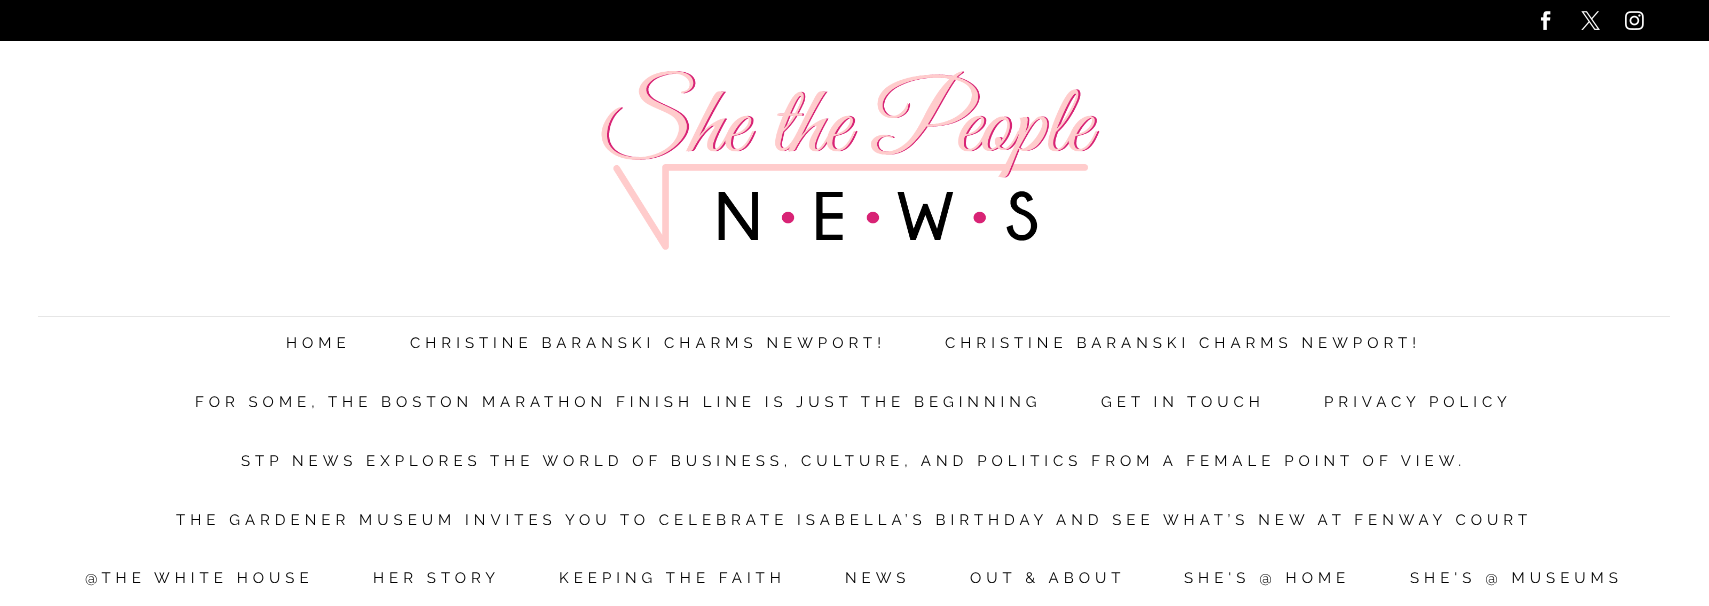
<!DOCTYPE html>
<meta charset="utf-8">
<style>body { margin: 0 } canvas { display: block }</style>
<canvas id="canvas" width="1709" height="606"></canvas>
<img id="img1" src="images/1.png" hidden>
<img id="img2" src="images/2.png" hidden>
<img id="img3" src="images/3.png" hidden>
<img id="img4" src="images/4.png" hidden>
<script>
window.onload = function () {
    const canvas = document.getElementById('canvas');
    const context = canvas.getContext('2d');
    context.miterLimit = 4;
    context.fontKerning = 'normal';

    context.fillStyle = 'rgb(255, 255, 255)';
    context.fillRect(0, 0, 1709, 606);
    context.fillStyle = 'rgb(0, 0, 0)';
    context.fillRect(0, 0, 1709, 41);
    context.drawImage(document.getElementById('img1'), 1540, 11, 11, 19);
    context.drawImage(document.getElementById('img2'), 1581, 11, 19, 19);
    context.drawImage(document.getElementById('img3'), 1625, 11, 19, 19);
    context.drawImage(document.getElementById('img4'), 601, 71, 499, 179);
    context.fillStyle = 'rgb(230, 230, 230)';
    context.fillRect(38, 316, 1632, 1);
    context.letterSpacing = '5px';
    context.font = '15px Raleway';
    context.fillStyle = 'rgb(0, 0, 0)';
    context.fillText('HOME', 286, 348);
    context.fillText('CHRISTINE BARANSKI CHARMS NEWPORT!', 410, 348);
    context.fillText('CHRISTINE BARANSKI CHARMS NEWPORT!', 945, 348);
    context.fillText('FOR SOME, THE BOSTON MARATHON FINISH LINE IS JUST THE BEGINNING', 195, 407);
    context.fillText('GET IN TOUCH', 1101, 407);
    context.fillText('PRIVACY POLICY', 1324, 407);
    context.fillText('STP NEWS EXPLORES THE WORLD OF BUSINESS, CULTURE, AND POLITICS FROM A FEMALE POINT OF VIEW.', 241, 466);
    context.fillText('THE GARDENER MUSEUM INVITES YOU TO CELEBRATE ISABELLA’S BIRTHDAY AND SEE WHAT’S NEW AT FENWAY COURT', 176, 525);
    context.fillText('@THE WHITE HOUSE', 85, 583);
    context.fillText('HER STORY', 373, 583);
    context.fillText('KEEPING THE FAITH', 559, 583);
    context.fillText('NEWS', 845, 583);
    context.fillText('OUT & ABOUT', 970, 583);
    context.fillText('SHE\'S @ HOME', 1184, 583);
    context.fillText('SHE\'S @ MUSEUMS', 1410, 583);
};
</script>
